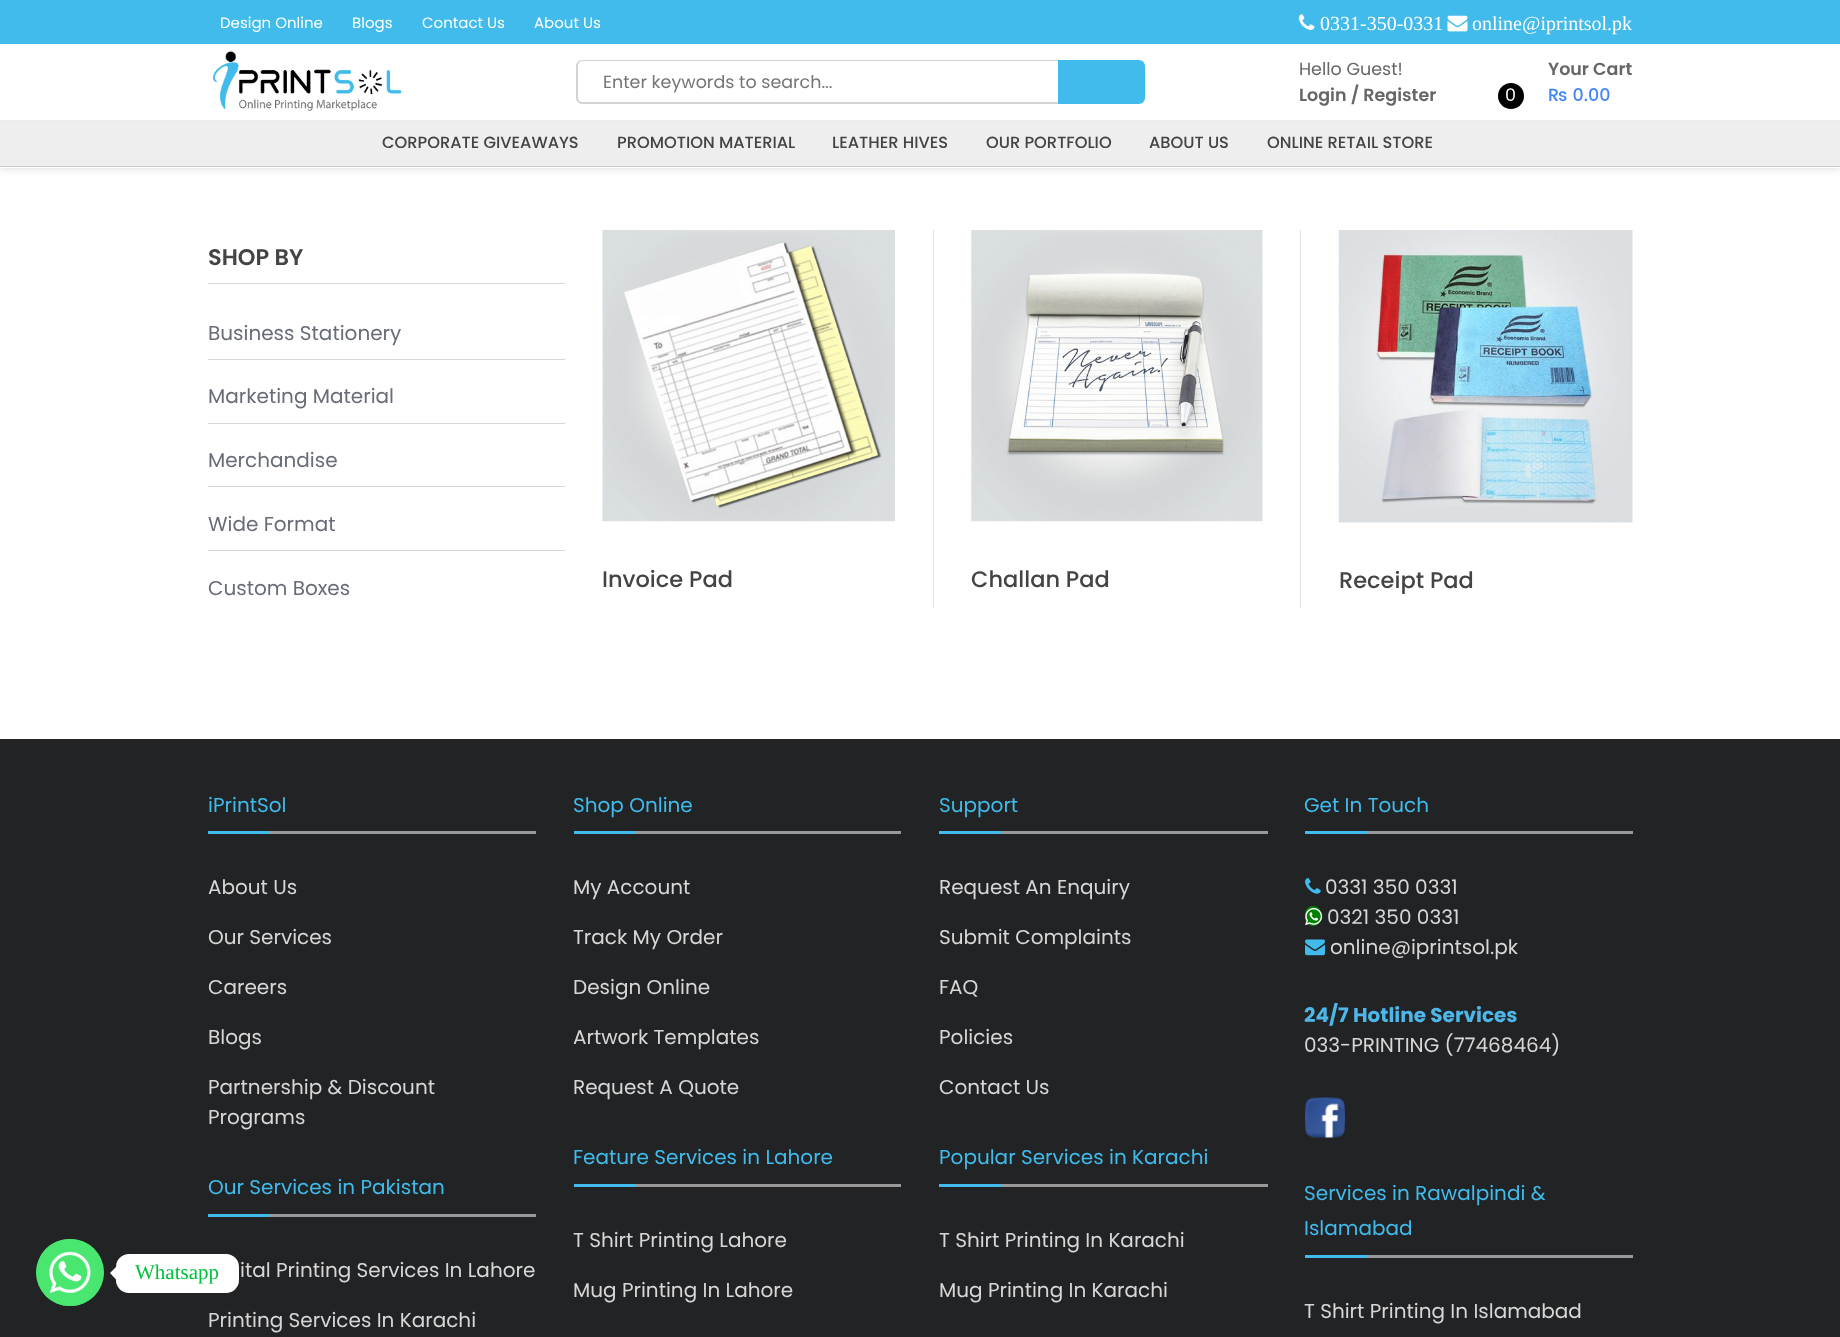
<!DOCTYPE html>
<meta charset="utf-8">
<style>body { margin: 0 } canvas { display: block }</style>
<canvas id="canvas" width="1840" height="1337"></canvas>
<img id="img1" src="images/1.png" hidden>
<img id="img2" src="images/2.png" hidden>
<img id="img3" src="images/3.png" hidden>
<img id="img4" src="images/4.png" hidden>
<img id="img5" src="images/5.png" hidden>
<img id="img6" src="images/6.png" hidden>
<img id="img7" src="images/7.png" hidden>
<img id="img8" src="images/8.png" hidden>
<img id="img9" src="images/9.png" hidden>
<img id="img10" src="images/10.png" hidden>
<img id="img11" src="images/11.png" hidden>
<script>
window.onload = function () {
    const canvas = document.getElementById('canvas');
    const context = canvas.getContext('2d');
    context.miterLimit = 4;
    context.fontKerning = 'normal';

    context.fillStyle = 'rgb(255, 255, 255)';
    context.fillRect(0, 0, 1840, 1337);
    context.fillStyle = 'rgb(34, 35, 37)';
    context.fillRect(0, 739, 1840, 598);
    context.fillStyle = 'rgb(73, 230, 112)';
    context.beginPath();
    context.roundRect(36, 1239, 68, 67, 33.5);
    context.fill();
    context.drawImage(document.getElementById('img1'), 36, 1239, 68, 67);
    context.fillStyle = 'rgb(255, 255, 255)';
    context.beginPath();
    context.roundRect(116, 1254, 123, 39, 13);
    context.fill();
    context.beginPath();
    context.moveTo(116, 1267);
    context.lineTo(116, 1279.5);
    context.lineTo(110, 1273);
    context.closePath();
    context.fill();
    context.save();
    context.beginPath();
    context.moveTo(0, 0);
    context.lineTo(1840, 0);
    context.lineTo(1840, 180);
    context.lineTo(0, 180);
    context.closePath();
    context.moveTo(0, 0);
    context.lineTo(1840, 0);
    context.lineTo(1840, 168);
    context.lineTo(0, 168);
    context.closePath();
    context.clip('evenodd');
    context.fillStyle = 'rgba(0, 0, 0, 0.1)';
    context.filter = 'blur(3px)';
    context.beginPath();
    context.rect(0, 3, 1840, 167);
    context.fill();
    context.filter = 'none';
    context.restore();
    context.fillStyle = 'rgb(204, 204, 204)';
    context.fillRect(0, 166, 1840, 1);
    context.fillStyle = 'rgb(64, 187, 235)';
    context.fillRect(0, 0, 1840, 44);
    context.drawImage(document.getElementById('img2'), 1298, 14, 17, 16);
    context.drawImage(document.getElementById('img3'), 1447, 15, 21, 17);
    context.drawImage(document.getElementById('img4'), 212, 51, 190, 60);
    context.fillStyle = 'rgb(209, 211, 212)';
    context.beginPath();
    context.moveTo(582, 60);
    context.lineTo(1066, 60);
    context.bezierCurveTo(1068, 60, 1070, 62, 1070, 64);
    context.lineTo(1070, 100);
    context.bezierCurveTo(1070, 102, 1068, 104, 1066, 104);
    context.lineTo(582, 104);
    context.bezierCurveTo(579, 104, 576, 101, 576, 98);
    context.lineTo(576, 66);
    context.bezierCurveTo(576, 63, 579, 60, 582, 60);
    context.closePath();
    context.moveTo(582, 61);
    context.lineTo(1066, 61);
    context.bezierCurveTo(1068, 61, 1070, 62, 1070, 64);
    context.lineTo(1070, 100);
    context.bezierCurveTo(1070, 101, 1068, 102, 1066, 102);
    context.lineTo(582, 102);
    context.bezierCurveTo(580, 102, 578, 100, 578, 98);
    context.lineTo(578, 66);
    context.bezierCurveTo(578, 63, 580, 61, 582, 61);
    context.closePath();
    context.fill('evenodd');
    context.fillStyle = 'rgb(64, 187, 235)';
    context.beginPath();
    context.roundRect(1058, 60, 87, 44, [0, 6, 6, 0]);
    context.fill();
    context.fillStyle = 'rgb(0, 0, 0)';
    context.beginPath();
    context.arc(1511, 96, 13, 0, 2 * Math.PI);
    context.fill();
    context.fillStyle = 'rgb(238, 238, 238)';
    context.fillRect(0, 121, 1840, 45);
    context.fillStyle = 'rgb(235, 235, 235)';
    context.fillRect(0, 120, 1840, 1);
    context.fillStyle = 'rgb(215, 215, 215)';
    context.fillRect(208, 283, 357, 1);
    context.fillRect(208, 359, 357, 1);
    context.fillRect(208, 423, 357, 1);
    context.fillRect(208, 486, 357, 1);
    context.fillRect(208, 550, 357, 1);
    context.fillStyle = 'rgb(225, 225, 225)';
    context.fillRect(933, 230, 1, 378);
    context.drawImage(document.getElementById('img5'), 602, 230, 293, 292);
    context.fillRect(1300, 230, 1, 378);
    context.drawImage(document.getElementById('img6'), 971, 230, 292, 292);
    context.drawImage(document.getElementById('img7'), 1338, 230, 295, 293);
    context.fillStyle = 'rgb(153, 153, 153)';
    context.fillRect(270, 831, 266, 3);
    context.fillStyle = 'rgb(64, 187, 235)';
    context.fillRect(208, 831, 62, 3);
    context.fillStyle = 'rgb(153, 153, 153)';
    context.fillRect(270, 1214, 266, 3);
    context.fillStyle = 'rgb(64, 187, 235)';
    context.fillRect(208, 1214, 62, 3);
    context.fillStyle = 'rgb(153, 153, 153)';
    context.fillRect(636, 831, 265, 3);
    context.fillStyle = 'rgb(64, 187, 235)';
    context.fillRect(574, 831, 62, 3);
    context.fillStyle = 'rgb(153, 153, 153)';
    context.fillRect(636, 1184, 265, 3);
    context.fillStyle = 'rgb(64, 187, 235)';
    context.fillRect(574, 1184, 62, 3);
    context.fillStyle = 'rgb(153, 153, 153)';
    context.fillRect(1001, 831, 267, 3);
    context.fillStyle = 'rgb(64, 187, 235)';
    context.fillRect(939, 831, 62, 3);
    context.fillStyle = 'rgb(153, 153, 153)';
    context.fillRect(1001, 1184, 267, 3);
    context.fillStyle = 'rgb(64, 187, 235)';
    context.fillRect(939, 1184, 62, 3);
    context.fillStyle = 'rgb(153, 153, 153)';
    context.fillRect(1368, 831, 265, 3);
    context.fillStyle = 'rgb(64, 187, 235)';
    context.fillRect(1305, 831, 63, 3);
    context.drawImage(document.getElementById('img8'), 1305, 878, 16, 16);
    context.fillStyle = 'rgb(0, 128, 0)';
    context.beginPath();
    context.roundRect(1305, 906, 16, 20, 8);
    context.fill();
    context.drawImage(document.getElementById('img9'), 1305, 908, 18, 18);
    context.drawImage(document.getElementById('img10'), 1305, 939, 20, 17);
    context.drawImage(document.getElementById('img11'), 1305, 1097, 40, 41);
    context.fillStyle = 'rgb(153, 153, 153)';
    context.fillRect(1368, 1255, 265, 3);
    context.fillStyle = 'rgb(64, 187, 235)';
    context.fillRect(1305, 1255, 63, 3);
    context.font = '21px Liberation Serif';
    context.fillStyle = 'rgb(0, 192, 60)';
    context.fillText('Whatsapp', 135, 1279);
    context.font = '15px Poppins';
    context.fillStyle = 'rgb(255, 255, 255)';
    context.fillText('Design Online', 220, 28);
    context.fillText('Blogs', 352, 28);
    context.fillText('Contact Us', 422, 28);
    context.fillText('About Us', 534, 28);
    context.font = '20px Liberation Serif';
    context.fillText('0331-350-0331', 1320, 30);
    context.fillText('online@iprintsol.pk', 1472, 30);
    context.font = '17.5px Poppins';
    context.fillStyle = 'rgb(117, 117, 117)';
    context.fillText('Enter keywords to search...', 603, 88);
    context.fillStyle = 'rgb(102, 102, 102)';
    context.fillText('Hello Guest!', 1299, 75);
    context.font = '600 17.5px Poppins';
    context.fillText('Login / Register', 1299, 101);
    context.font = '17.5px Poppins';
    context.fillStyle = 'rgb(255, 255, 255)';
    context.fillText('0', 1505, 101);
    context.font = '600 17.5px Poppins';
    context.fillStyle = 'rgb(102, 102, 102)';
    context.fillText('Your Cart', 1548, 75);
    context.font = '500 17.5px Poppins';
    context.fillStyle = 'rgb(66, 133, 244)';
    context.fillText('₨ 0.00', 1548, 101);
    context.font = '500 16.25px Poppins';
    context.fillStyle = 'rgb(68, 68, 68)';
    context.fillText('CORPORATE GIVEAWAYS', 382, 148);
    context.fillText('PROMOTION MATERIAL', 617, 148);
    context.fillText('LEATHER HIVES', 832, 148);
    context.fillText('OUR PORTFOLIO', 986, 148);
    context.fillText('ABOUT US', 1149, 148);
    context.fillText('ONLINE RETAIL STORE', 1267, 148);
    context.font = '600 22.5px Poppins';
    context.fillText('SHOP BY', 208, 265);
    context.font = '20px Poppins';
    context.fillStyle = 'rgb(103, 108, 119)';
    context.fillText('Business Stationery', 208, 340);
    context.fillText('Marketing Material', 208, 403);
    context.fillText('Merchandise', 208, 467);
    context.fillText('Wide Format', 208, 531);
    context.fillText('Custom Boxes', 208, 595);
    context.font = '500 22.5px Poppins';
    context.fillStyle = 'rgb(68, 68, 68)';
    context.fillText('Invoice Pad', 602, 587);
    context.fillText('Challan Pad', 971, 587);
    context.fillText('Receipt Pad', 1339, 588);
    context.font = '20px Poppins';
    context.fillStyle = 'rgb(64, 187, 235)';
    context.fillText('iPrintSol', 208, 812);
    context.fillStyle = 'rgb(215, 215, 215)';
    context.fillText('About Us', 208, 894);
    context.fillText('Our Services', 208, 944);
    context.fillText('Careers', 208, 994);
    context.fillText('Blogs', 208, 1044);
    context.fillText('Partnership & Discount', 208, 1094);
    context.fillText('Programs', 208, 1124);
    context.fillStyle = 'rgb(64, 187, 235)';
    context.fillText('Our Services in Pakistan', 208, 1194);
    context.fillStyle = 'rgb(215, 215, 215)';
    context.fillText('ital Printing Services In Lahore', 240, 1277);
    context.fillText('Printing Services In Karachi', 208, 1327);
    context.fillStyle = 'rgb(64, 187, 235)';
    context.fillText('Shop Online', 573, 812);
    context.fillStyle = 'rgb(215, 215, 215)';
    context.fillText('My Account', 573, 894);
    context.fillText('Track My Order', 573, 944);
    context.fillText('Design Online', 573, 994);
    context.fillText('Artwork Templates', 573, 1044);
    context.fillText('Request A Quote', 573, 1094);
    context.fillStyle = 'rgb(64, 187, 235)';
    context.fillText('Feature Services in Lahore', 573, 1164);
    context.fillStyle = 'rgb(215, 215, 215)';
    context.fillText('T Shirt Printing Lahore', 573, 1247);
    context.fillText('Mug Printing In Lahore', 573, 1297);
    context.fillStyle = 'rgb(64, 187, 235)';
    context.fillText('Support', 939, 812);
    context.fillStyle = 'rgb(215, 215, 215)';
    context.fillText('Request An Enquiry', 939, 894);
    context.fillText('Submit Complaints', 939, 944);
    context.fillText('FAQ', 939, 994);
    context.fillText('Policies', 939, 1044);
    context.fillText('Contact Us', 939, 1094);
    context.fillStyle = 'rgb(64, 187, 235)';
    context.fillText('Popular Services in Karachi', 939, 1164);
    context.fillStyle = 'rgb(215, 215, 215)';
    context.fillText('T Shirt Printing In Karachi', 939, 1247);
    context.fillText('Mug Printing In Karachi', 939, 1297);
    context.fillStyle = 'rgb(64, 187, 235)';
    context.fillText('Get In Touch', 1304, 812);
    context.fillStyle = 'rgb(215, 215, 215)';
    context.fillText('0331 350 0331', 1325, 894);
    context.fillText('0321 350 0331', 1327, 924);
    context.fillText('online@iprintsol.pk', 1330, 954);
    context.font = 'bold 20px Poppins';
    context.fillStyle = 'rgb(77, 183, 234)';
    context.fillText('24/7 Hotline Services', 1304, 1022);
    context.font = '20px Poppins';
    context.fillStyle = 'rgb(215, 215, 215)';
    context.fillText('033-PRINTING (77468464)', 1304, 1052);
    context.fillStyle = 'rgb(64, 187, 235)';
    context.fillText('Services in Rawalpindi &', 1304, 1200);
    context.fillText('Islamabad', 1304, 1235);
    context.fillStyle = 'rgb(215, 215, 215)';
    context.fillText('T Shirt Printing In Islamabad', 1304, 1318);
};
</script>
